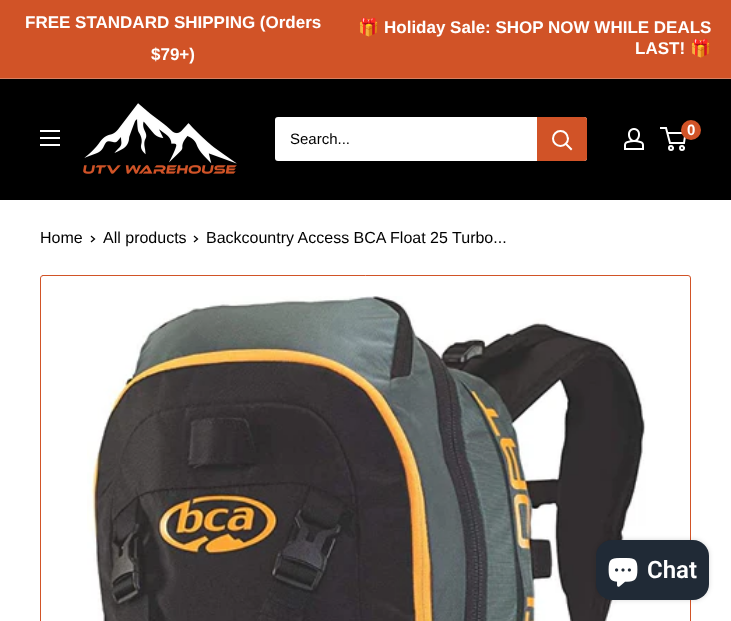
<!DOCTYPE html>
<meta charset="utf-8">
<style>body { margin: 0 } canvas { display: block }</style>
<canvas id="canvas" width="731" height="621"></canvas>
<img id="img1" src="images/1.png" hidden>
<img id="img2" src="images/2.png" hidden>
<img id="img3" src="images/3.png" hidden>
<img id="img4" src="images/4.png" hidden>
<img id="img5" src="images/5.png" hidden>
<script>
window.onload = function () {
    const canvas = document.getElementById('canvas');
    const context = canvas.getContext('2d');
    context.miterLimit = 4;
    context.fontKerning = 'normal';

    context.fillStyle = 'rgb(255, 255, 255)';
    context.fillRect(0, 0, 731, 621);
    context.fillStyle = 'rgb(209, 83, 39)';
    context.fillRect(0, 0, 731, 78);
    context.fillStyle = 'rgb(216, 128, 97)';
    context.fillRect(0, 78, 731, 1);
    context.fillStyle = 'rgb(0, 0, 0)';
    context.fillRect(0, 79, 731, 121);
    context.drawImage(document.getElementById('img1'), 40, 130, 20, 16);
    context.drawImage(document.getElementById('img2'), 83, 103, 154, 71);
    context.fillStyle = 'rgb(255, 255, 255)';
    context.beginPath();
    context.roundRect(275, 117, 312, 44, 3);
    context.fill();
    context.fillStyle = 'rgb(209, 83, 39)';
    context.beginPath();
    context.roundRect(537, 117, 50, 44, [0, 3, 3, 0]);
    context.fill();
    context.beginPath();
    context.moveTo(571, 149);
    context.lineTo(566, 144);
    context.strokeStyle = 'rgb(255, 255, 255)';
    context.lineWidth = 2;
    context.lineCap = 'square';
    context.stroke();
    context.beginPath();
    context.arc(560.5, 138.5, 7.5, 0, 2 * Math.PI);
    context.stroke();
    context.drawImage(document.getElementById('img3'), 624, 128, 20, 22);
    context.beginPath();
    context.arc(671, 148, 2, 0, 2 * Math.PI);
    context.stroke();
    context.beginPath();
    context.arc(682, 148, 2, 0, 2 * Math.PI);
    context.stroke();
    context.beginPath();
    context.moveTo(667.5, 133);
    context.lineTo(685.5, 133);
    context.lineTo(684, 143);
    context.lineTo(670, 143);
    context.lineTo(666, 128);
    context.lineTo(660, 128);
    context.lineCap = 'butt';
    context.stroke();
    context.beginPath();
    context.arc(691, 130, 10, 0, 2 * Math.PI);
    context.fill();
    context.beginPath();
    context.moveTo(91.5, 236.5);
    context.lineTo(94.5, 239);
    context.lineTo(91.5, 241.5);
    context.strokeStyle = 'rgb(0, 0, 0)';
    context.lineWidth = 1.3;
    context.lineCap = 'square';
    context.stroke();
    context.beginPath();
    context.moveTo(194.5, 236.5);
    context.lineTo(197.5, 239);
    context.lineTo(194.5, 241.5);
    context.stroke();
    context.beginPath();
    context.roundRect(40.5, 275.5, 650, 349, 2.5);
    context.strokeStyle = 'rgb(209, 83, 39)';
    context.lineWidth = 1;
    context.stroke();
    context.drawImage(document.getElementById('img4'), 87, 296, 559, 325);
    context.fillStyle = 'rgba(0, 0, 0, 0.15)';
    context.filter = 'blur(2.5px)';
    context.beginPath();
    context.roundRect(596, 540, 113, 60, 16);
    context.fill();
    context.filter = 'none';
    context.fillStyle = 'rgb(32, 42, 54)';
    context.beginPath();
    context.roundRect(596, 540, 113, 60, 16);
    context.fill();
    context.drawImage(document.getElementById('img5'), 608, 558, 30, 29);
    context.font = 'bold 17px Liberation Sans';
    context.fillStyle = 'rgb(255, 255, 255)';
    context.fillText('FREE STANDARD SHIPPING (Orders', 25, 28);
    context.fillText('$79+)', 151, 60);
    context.font = 'bold 17px Noto Color Emoji';
    context.fillText('🎁', 358, 33);
    context.font = 'bold 17px Liberation Sans';
    context.fillText('Holiday Sale: SHOP NOW WHILE DEALS', 384, 33);
    context.fillText('LAST!', 635, 54);
    context.font = 'bold 17px Noto Color Emoji';
    context.fillText('🎁', 690, 54);
    context.font = '15px Liberation Sans';
    context.fillStyle = 'rgb(0, 0, 0)';
    context.fillText('Search...', 290, 144);
    context.font = 'bold 15px Liberation Sans';
    context.fillStyle = 'rgb(255, 255, 255)';
    context.fillText('0', 687, 135);
    context.font = '16px Liberation Sans';
    context.fillStyle = 'rgb(0, 0, 0)';
    context.fillText('Home', 40, 243);
    context.fillText('All products', 103, 243);
    context.fillText('Backcountry Access BCA Float 25 Turbo...', 206, 243);
    context.font = '600 24px Roboto';
    context.fillStyle = 'rgb(255, 255, 255)';
    context.fillText('Chat', 647, 578);
};
</script>
